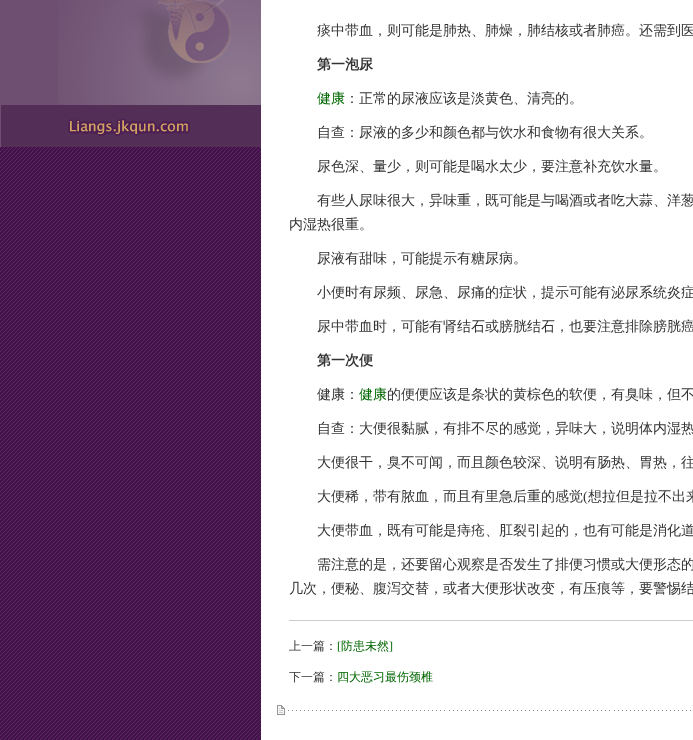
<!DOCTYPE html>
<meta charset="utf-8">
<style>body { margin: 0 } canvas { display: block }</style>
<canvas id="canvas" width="693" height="740"></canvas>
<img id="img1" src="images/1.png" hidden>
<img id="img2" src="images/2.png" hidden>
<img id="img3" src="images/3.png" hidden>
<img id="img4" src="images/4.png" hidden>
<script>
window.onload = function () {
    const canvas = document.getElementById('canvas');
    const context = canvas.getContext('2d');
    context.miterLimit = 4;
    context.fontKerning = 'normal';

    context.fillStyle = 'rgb(255, 255, 255)';
    context.fillRect(0, 0, 693, 740);
    context.drawImage(document.getElementById('img1'), 0, 147, 261, 593);
    context.fillStyle = 'rgb(110, 79, 114)';
    context.fillRect(0, 0, 58, 147);
    context.drawImage(document.getElementById('img2'), 58, 0, 203, 105);
    context.drawImage(document.getElementById('img3'), 1, 105, 260, 42);
    context.fillStyle = 'rgb(204, 204, 204)';
    context.fillRect(289, 620, 404, 1);
    context.drawImage(document.getElementById('img4'), 277, 705, 414, 10);
    context.font = '500 14px WenQuanYi Zen Hei';
    context.fillStyle = 'rgb(51, 51, 51)';
    context.fillText('痰中带血，则可能是肺热、肺燥，肺结核或者肺癌。还需到医', 317, 35);
    context.font = 'bold 14px WenQuanYi Zen Hei';
    context.fillText('第一泡尿', 317, 69);
    context.font = '500 14px WenQuanYi Zen Hei';
    context.fillStyle = 'rgb(0, 102, 0)';
    context.fillText('健康', 317, 103);
    context.fillStyle = 'rgb(51, 51, 51)';
    context.fillText('：正常的尿液应该是淡黄色、清亮的。', 345, 103);
    context.fillText('自查：尿液的多少和颜色都与饮水和食物有很大关系。', 317, 137);
    context.fillText('尿色深、量少，则可能是喝水太少，要注意补充饮水量。', 317, 171);
    context.fillText('有些人尿味很大，异味重，既可能是与喝酒或者吃大蒜、洋葱', 317, 205);
    context.fillText('内湿热很重。', 289, 229);
    context.fillText('尿液有甜味，可能提示有糖尿病。', 317, 263);
    context.fillText('小便时有尿频、尿急、尿痛的症状，提示可能有泌尿系统炎症', 317, 297);
    context.fillText('尿中带血时，可能有肾结石或膀胱结石，也要注意排除膀胱癌', 317, 331);
    context.font = 'bold 14px WenQuanYi Zen Hei';
    context.fillText('第一次便', 317, 365);
    context.font = '500 14px WenQuanYi Zen Hei';
    context.fillText('健康：', 317, 399);
    context.fillStyle = 'rgb(0, 102, 0)';
    context.fillText('健康', 359, 399);
    context.fillStyle = 'rgb(51, 51, 51)';
    context.fillText('的便便应该是条状的黄棕色的软便，有臭味，但不', 387, 399);
    context.fillText('自查：大便很黏腻，有排不尽的感觉，异味大，说明体内湿热', 317, 433);
    context.fillText('大便很干，臭不可闻，而且颜色较深、说明有肠热、胃热，往', 317, 467);
    context.fillText('大便稀，带有脓血，而且有里急后重的感觉', 317, 501);
    context.font = '14px Liberation Serif';
    context.fillText('(', 583, 501);
    context.font = '500 14px WenQuanYi Zen Hei';
    context.fillText('想拉但是拉不出来', 588, 501);
    context.fillText('大便带血，既有可能是痔疮、肛裂引起的，也有可能是消化道', 317, 535);
    context.fillText('需注意的是，还要留心观察是否发生了排便习惯或大便形态的', 317, 569);
    context.fillText('几次，便秘、腹泻交替，或者大便形状改变，有压痕等，要警惕结', 289, 593);
    context.font = '500 12px WenQuanYi Zen Hei';
    context.fillText('上一篇：', 289, 650);
    context.font = '12px Liberation Serif';
    context.fillStyle = 'rgb(0, 102, 0)';
    context.fillText('[', 337, 650);
    context.font = '500 12px WenQuanYi Zen Hei';
    context.fillText('防患未然', 341, 650);
    context.font = '12px Liberation Serif';
    context.fillText(']', 389, 650);
    context.font = '500 12px WenQuanYi Zen Hei';
    context.fillStyle = 'rgb(51, 51, 51)';
    context.fillText('下一篇：', 289, 681);
    context.fillStyle = 'rgb(0, 102, 0)';
    context.fillText('四大恶习最伤颈椎', 337, 681);
};
</script>
